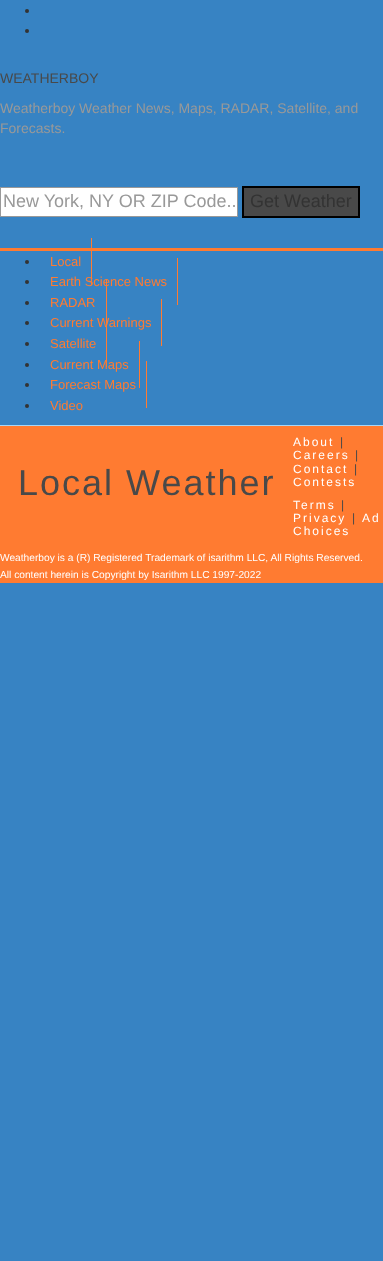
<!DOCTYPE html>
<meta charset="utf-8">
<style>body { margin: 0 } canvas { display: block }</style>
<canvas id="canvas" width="383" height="1261"></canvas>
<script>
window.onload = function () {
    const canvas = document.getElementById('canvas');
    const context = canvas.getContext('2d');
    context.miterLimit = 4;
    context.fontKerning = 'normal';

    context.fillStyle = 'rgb(55, 131, 195)';
    context.fillRect(0, 0, 383, 1261);
    context.fillStyle = 'rgb(51, 51, 51)';
    context.beginPath();
    context.arc(27, 11, 2, 0, 2 * Math.PI);
    context.fill();
    context.beginPath();
    context.arc(27, 31, 2, 0, 2 * Math.PI);
    context.fill();
    context.fillStyle = 'rgb(255, 123, 49)';
    context.fillRect(0, 248, 383, 3);
    context.fillStyle = 'rgb(255, 255, 255)';
    context.beginPath();
    context.rect(0.5, 187.5, 237, 29);
    context.fill();
    context.strokeStyle = 'rgb(153, 153, 153)';
    context.stroke();
    context.fillStyle = 'rgb(73, 73, 73)';
    context.beginPath();
    context.rect(243, 187, 116, 30);
    context.fill();
    context.strokeStyle = 'rgb(0, 0, 0)';
    context.lineWidth = 2;
    context.stroke();
    context.fillStyle = 'rgb(51, 51, 51)';
    context.beginPath();
    context.arc(27, 262, 2, 0, 2 * Math.PI);
    context.fill();
    context.fillStyle = 'rgb(255, 123, 49)';
    context.fillRect(91, 238, 1, 47);
    context.fillStyle = 'rgb(51, 51, 51)';
    context.beginPath();
    context.arc(27, 282, 2, 0, 2 * Math.PI);
    context.fill();
    context.fillStyle = 'rgb(255, 123, 49)';
    context.fillRect(177, 258, 1, 47);
    context.fillStyle = 'rgb(51, 51, 51)';
    context.beginPath();
    context.arc(27, 303, 2, 0, 2 * Math.PI);
    context.fill();
    context.fillStyle = 'rgb(255, 123, 49)';
    context.fillRect(106, 279, 1, 47);
    context.fillStyle = 'rgb(51, 51, 51)';
    context.beginPath();
    context.arc(27, 323, 2, 0, 2 * Math.PI);
    context.fill();
    context.fillStyle = 'rgb(255, 123, 49)';
    context.fillRect(161, 299, 1, 47);
    context.fillStyle = 'rgb(51, 51, 51)';
    context.beginPath();
    context.arc(27, 344, 2, 0, 2 * Math.PI);
    context.fill();
    context.fillStyle = 'rgb(255, 123, 49)';
    context.fillRect(106, 320, 1, 47);
    context.fillStyle = 'rgb(51, 51, 51)';
    context.beginPath();
    context.arc(27, 365, 2, 0, 2 * Math.PI);
    context.fill();
    context.fillStyle = 'rgb(255, 123, 49)';
    context.fillRect(139, 341, 1, 47);
    context.fillStyle = 'rgb(51, 51, 51)';
    context.beginPath();
    context.arc(27, 385, 2, 0, 2 * Math.PI);
    context.fill();
    context.fillStyle = 'rgb(255, 123, 49)';
    context.fillRect(146, 361, 1, 47);
    context.fillStyle = 'rgb(51, 51, 51)';
    context.beginPath();
    context.arc(27, 406, 2, 0, 2 * Math.PI);
    context.fill();
    context.fillStyle = 'rgb(255, 123, 49)';
    context.fillRect(0, 426, 383, 157);
    context.fillStyle = 'rgb(166, 215, 248)';
    context.fillRect(0, 425, 383, 1);
    context.font = '14px Liberation Sans';
    context.fillStyle = 'rgb(73, 73, 73)';
    context.fillText('WEATHERBOY', 0, 83);
    context.fillStyle = 'rgb(153, 153, 153)';
    context.fillText('Weatherboy Weather News, Maps, RADAR, Satellite, and', 0, 113);
    context.fillText('Forecasts.', 0, 133);
    context.font = '18px Liberation Sans';
    context.fillText('New York, NY OR ZIP Code..', 3, 207);
    context.fillStyle = 'rgb(51, 51, 51)';
    context.fillText('Get Weather', 250, 207);
    context.font = '13px Liberation Sans';
    context.fillStyle = 'rgb(255, 123, 49)';
    context.fillText('Local', 50, 266);
    context.fillText('Earth Science News', 50, 286);
    context.fillText('RADAR', 50, 307);
    context.fillText('Current Warnings', 50, 327);
    context.fillText('Satellite', 50, 348);
    context.fillText('Current Maps', 50, 369);
    context.fillText('Forecast Maps', 50, 389);
    context.fillText('Video', 50, 410);
    context.letterSpacing = '2px';
    context.font = '12px Liberation Sans';
    context.fillStyle = 'rgb(255, 255, 255)';
    context.fillText('About', 293, 446);
    context.fillStyle = 'rgb(73, 73, 73)';
    context.fillText('|', 340, 446);
    context.fillStyle = 'rgb(255, 255, 255)';
    context.fillText('Careers', 293, 459);
    context.fillStyle = 'rgb(73, 73, 73)';
    context.fillText('|', 355, 459);
    context.fillStyle = 'rgb(255, 255, 255)';
    context.fillText('Contact', 293, 473);
    context.fillStyle = 'rgb(73, 73, 73)';
    context.fillText('|', 354, 473);
    context.fillStyle = 'rgb(255, 255, 255)';
    context.fillText('Contests', 293, 486);
    context.fillText('Terms', 293, 509);
    context.fillStyle = 'rgb(73, 73, 73)';
    context.fillText('|', 341, 509);
    context.fillStyle = 'rgb(255, 255, 255)';
    context.fillText('Privacy', 293, 522);
    context.fillStyle = 'rgb(73, 73, 73)';
    context.fillText('|', 352, 522);
    context.fillStyle = 'rgb(255, 255, 255)';
    context.fillText('Ad', 362, 522);
    context.fillText('Choices', 293, 535);
    context.letterSpacing = '0px';
    context.font = '10.2px Liberation Sans';
    context.fillText('Weatherboy is a (R) Registered Trademark of isarithm LLC, All Rights Reserved.', 0, 561);
    context.fillText('All content herein is Copyright by Isarithm LLC 1997-2022', 0, 578);
    context.letterSpacing = '2px';
    context.font = '36px Liberation Sans';
    context.fillStyle = 'rgb(73, 73, 73)';
    context.fillText('Local Weather', 18, 495);
};
</script>
